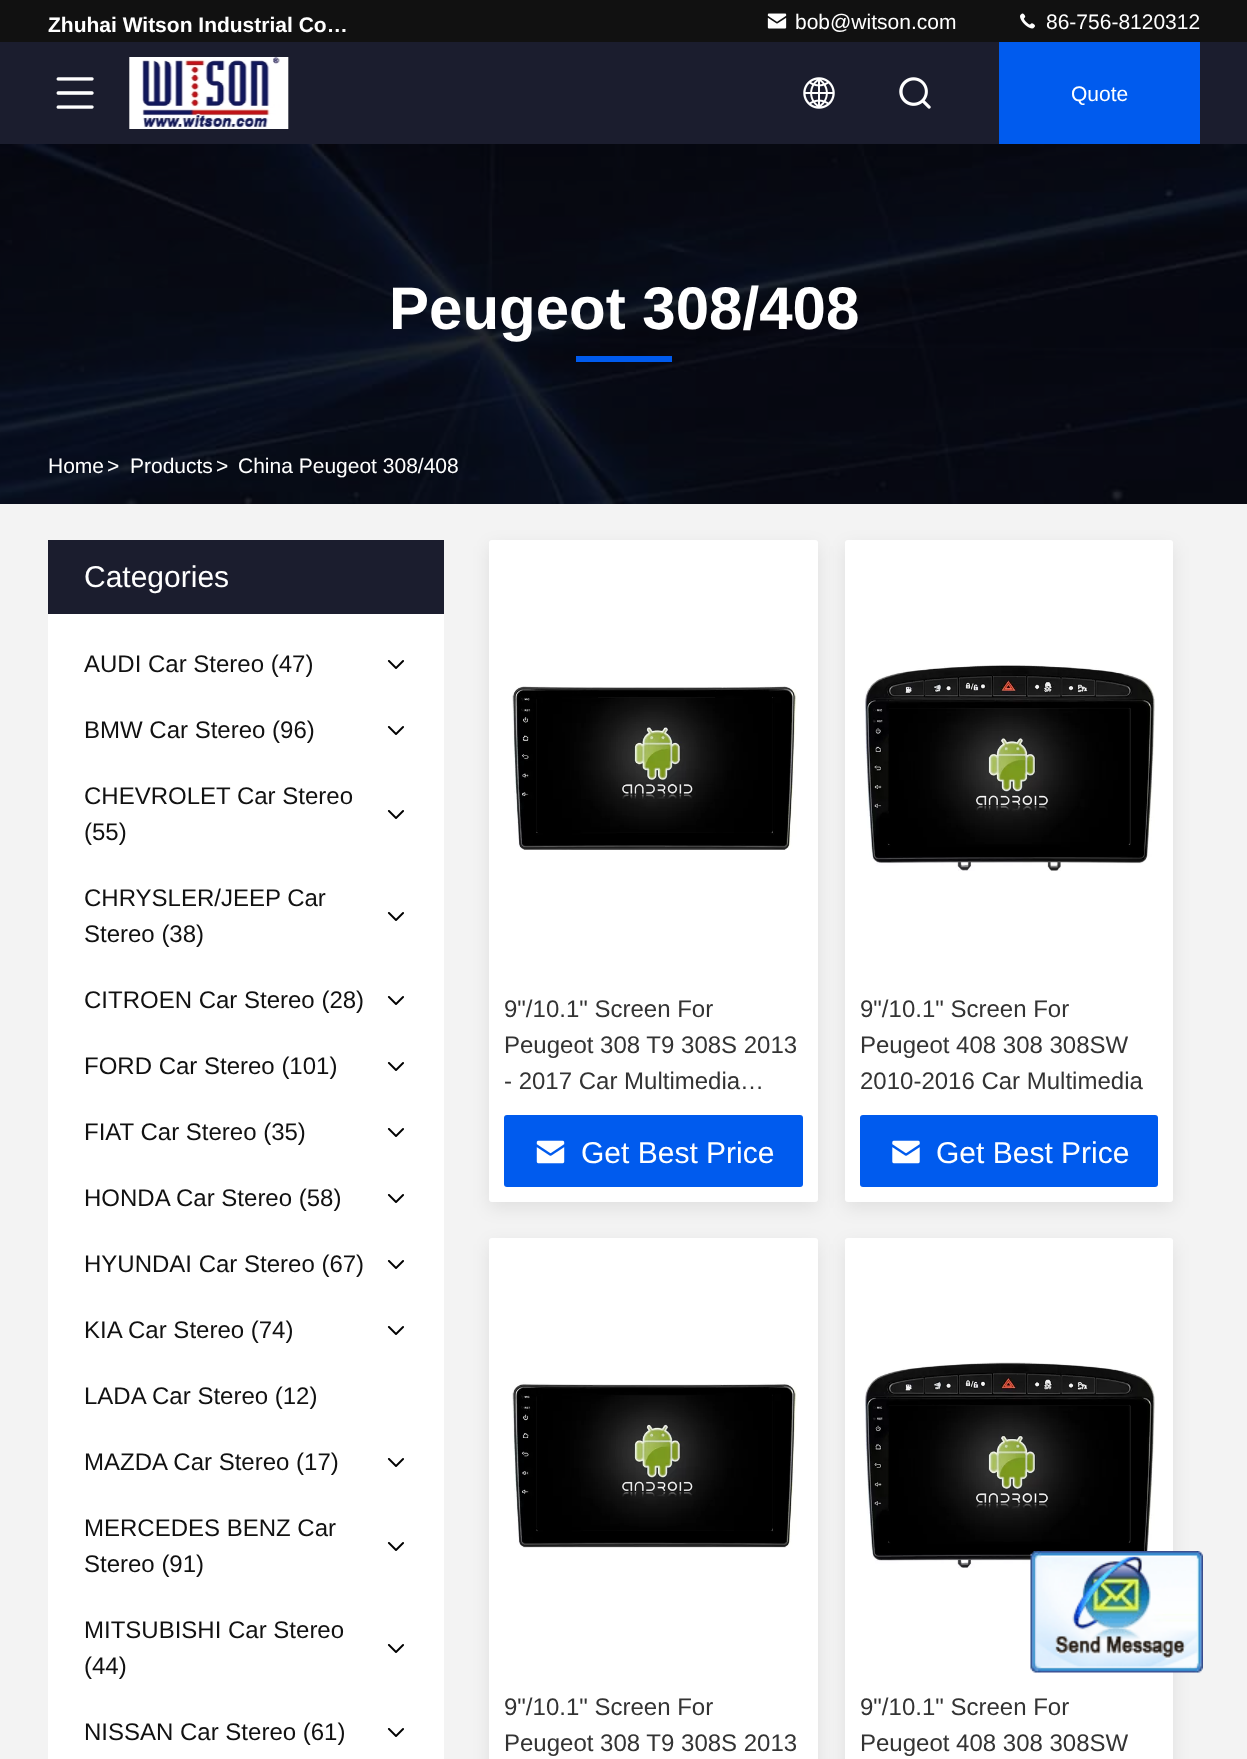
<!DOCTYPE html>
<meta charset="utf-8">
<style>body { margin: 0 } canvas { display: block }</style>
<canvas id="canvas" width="1247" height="1759"></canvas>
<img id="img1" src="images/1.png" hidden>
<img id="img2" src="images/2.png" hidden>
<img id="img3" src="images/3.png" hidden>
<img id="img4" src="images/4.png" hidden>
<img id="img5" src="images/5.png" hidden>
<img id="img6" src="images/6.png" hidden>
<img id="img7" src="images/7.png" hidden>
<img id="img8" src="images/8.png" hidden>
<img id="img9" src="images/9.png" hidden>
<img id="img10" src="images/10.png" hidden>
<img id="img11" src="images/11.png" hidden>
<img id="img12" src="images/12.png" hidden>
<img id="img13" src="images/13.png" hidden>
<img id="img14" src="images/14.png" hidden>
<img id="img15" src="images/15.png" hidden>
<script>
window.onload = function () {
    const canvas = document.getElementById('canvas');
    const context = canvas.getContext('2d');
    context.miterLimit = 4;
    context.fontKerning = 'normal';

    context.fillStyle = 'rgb(243, 243, 243)';
    context.fillRect(0, 0, 1247, 1759);
    context.fillStyle = 'rgb(17, 17, 17)';
    context.fillRect(0, 0, 1247, 42);
    context.drawImage(document.getElementById('img1'), 767, 13, 20, 16);
    context.drawImage(document.getElementById('img2'), 1020, 13, 15, 16);
    context.fillStyle = 'rgb(27, 29, 46)';
    context.fillRect(0, 42, 1247, 102);
    context.drawImage(document.getElementById('img3'), 56, 77, 38, 32);
    context.drawImage(document.getElementById('img4'), 129, 57, 160, 72);
    context.drawImage(document.getElementById('img5'), 803, 77, 32, 32);
    context.drawImage(document.getElementById('img6'), 899, 77, 32, 32);
    context.fillStyle = 'rgb(0, 91, 238)';
    context.fillRect(999, 42, 201, 102);
    context.drawImage(document.getElementById('img7'), 0, 144, 1247, 360);
    context.fillRect(576, 356, 96, 6);
    context.fillStyle = 'rgb(27, 29, 46)';
    context.fillRect(48, 540, 396, 74);
    context.fillStyle = 'rgb(255, 255, 255)';
    context.fillRect(48, 614, 396, 1145);
    context.drawImage(document.getElementById('img8'), 387, 660, 17, 9);
    context.drawImage(document.getElementById('img8'), 387, 726, 17, 9);
    context.drawImage(document.getElementById('img8'), 387, 810, 17, 9);
    context.drawImage(document.getElementById('img8'), 387, 912, 17, 9);
    context.drawImage(document.getElementById('img8'), 387, 996, 17, 9);
    context.drawImage(document.getElementById('img8'), 387, 1062, 17, 9);
    context.drawImage(document.getElementById('img8'), 387, 1128, 17, 9);
    context.drawImage(document.getElementById('img8'), 387, 1194, 17, 9);
    context.drawImage(document.getElementById('img8'), 387, 1260, 17, 9);
    context.drawImage(document.getElementById('img8'), 387, 1326, 17, 9);
    context.drawImage(document.getElementById('img8'), 387, 1458, 17, 9);
    context.drawImage(document.getElementById('img8'), 387, 1542, 17, 9);
    context.drawImage(document.getElementById('img8'), 387, 1644, 17, 9);
    context.drawImage(document.getElementById('img8'), 387, 1728, 17, 9);
    context.fillStyle = 'rgba(0, 0, 0, 0.08)';
    context.filter = 'blur(9px)';
    context.beginPath();
    context.roundRect(489, 546, 329, 662, 3);
    context.fill();
    context.filter = 'none';
    context.fillStyle = 'rgb(255, 255, 255)';
    context.beginPath();
    context.roundRect(489, 540, 329, 662, 3);
    context.fill();
    context.drawImage(document.getElementById('img9'), 512, 686, 285, 164);
    context.fillStyle = 'rgb(0, 91, 238)';
    context.beginPath();
    context.roundRect(504, 1115, 299, 72, 3);
    context.fill();
    context.drawImage(document.getElementById('img10'), 536, 1140, 29, 24);
    context.fillStyle = 'rgba(0, 0, 0, 0.08)';
    context.filter = 'blur(9px)';
    context.beginPath();
    context.roundRect(845, 546, 328, 662, 3);
    context.fill();
    context.filter = 'none';
    context.fillStyle = 'rgb(255, 255, 255)';
    context.beginPath();
    context.roundRect(845, 540, 328, 662, 3);
    context.fill();
    context.drawImage(document.getElementById('img11'), 865, 665, 290, 206);
    context.fillStyle = 'rgb(0, 91, 238)';
    context.beginPath();
    context.roundRect(860, 1115, 298, 72, 3);
    context.fill();
    context.drawImage(document.getElementById('img12'), 892, 1140, 28, 24);
    context.fillStyle = 'rgba(0, 0, 0, 0.08)';
    context.filter = 'blur(9px)';
    context.beginPath();
    context.roundRect(489, 1244, 329, 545, 3);
    context.fill();
    context.filter = 'none';
    context.fillStyle = 'rgb(255, 255, 255)';
    context.beginPath();
    context.roundRect(489, 1238, 329, 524, 3);
    context.fill();
    context.drawImage(document.getElementById('img13'), 512, 1382, 285, 166);
    context.fillStyle = 'rgba(0, 0, 0, 0.08)';
    context.filter = 'blur(9px)';
    context.beginPath();
    context.roundRect(845, 1244, 328, 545, 3);
    context.fill();
    context.filter = 'none';
    context.fillStyle = 'rgb(255, 255, 255)';
    context.beginPath();
    context.roundRect(845, 1238, 328, 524, 3);
    context.fill();
    context.drawImage(document.getElementById('img14'), 865, 1362, 290, 206);
    context.drawImage(document.getElementById('img15'), 1030, 1551, 173, 122);
    context.font = 'bold 21px Liberation Sans';
    context.fillText('Zhuhai Witson Industrial Co…', 48, 32);
    context.font = '21px Liberation Sans';
    context.fillText('bob@witson.com', 795, 29);
    context.fillText('86-756-8120312', 1046, 29);
    context.fillText('Quote', 1071, 101);
    context.font = 'bold 60px Liberation Sans';
    context.fillText('Peugeot 308/408', 389, 329);
    context.font = '21px Liberation Sans';
    context.fillText('Home', 48, 473);
    context.fillText('>', 107, 473);
    context.fillText('Products', 130, 473);
    context.fillText('>', 216, 473);
    context.fillText('China Peugeot 308/408', 238, 473);
    context.font = '30px Liberation Sans';
    context.fillText('Categories', 84, 587);
    context.font = '24px Liberation Sans';
    context.fillStyle = 'rgb(17, 17, 17)';
    context.fillText('AUDI Car Stereo (47)', 84, 672);
    context.fillText('BMW Car Stereo (96)', 84, 738);
    context.fillText('CHEVROLET Car Stereo', 84, 804);
    context.fillText('(55)', 84, 840);
    context.fillText('CHRYSLER/JEEP Car', 84, 906);
    context.fillText('Stereo (38)', 84, 942);
    context.fillText('CITROEN Car Stereo (28)', 84, 1008);
    context.fillText('FORD Car Stereo (101)', 84, 1074);
    context.fillText('FIAT Car Stereo (35)', 84, 1140);
    context.fillText('HONDA Car Stereo (58)', 84, 1206);
    context.fillText('HYUNDAI Car Stereo (67)', 84, 1272);
    context.fillText('KIA Car Stereo (74)', 84, 1338);
    context.fillText('LADA Car Stereo (12)', 84, 1404);
    context.fillText('MAZDA Car Stereo (17)', 84, 1470);
    context.fillText('MERCEDES BENZ Car', 84, 1536);
    context.fillText('Stereo (91)', 84, 1572);
    context.fillText('MITSUBISHI Car Stereo', 84, 1638);
    context.fillText('(44)', 84, 1674);
    context.fillText('NISSAN Car Stereo (61)', 84, 1740);
    context.fillStyle = 'rgb(51, 51, 51)';
    context.fillText('9"/10.1" Screen For', 504, 1017);
    context.fillText('Peugeot 308 T9 308S 2013', 504, 1053);
    context.fillText('- 2017 Car Multimedia…', 504, 1089);
    context.font = '30px Liberation Sans';
    context.fillStyle = 'rgb(255, 255, 255)';
    context.fillText('Get Best Price', 581, 1163);
    context.font = '24px Liberation Sans';
    context.fillStyle = 'rgb(51, 51, 51)';
    context.fillText('9"/10.1" Screen For', 860, 1017);
    context.fillText('Peugeot 408 308 308SW', 860, 1053);
    context.fillText('2010-2016 Car Multimedia', 860, 1089);
    context.font = '30px Liberation Sans';
    context.fillStyle = 'rgb(255, 255, 255)';
    context.fillText('Get Best Price', 936, 1163);
    context.font = '24px Liberation Sans';
    context.fillStyle = 'rgb(51, 51, 51)';
    context.fillText('9"/10.1" Screen For', 504, 1715);
    context.fillText('Peugeot 308 T9 308S 2013', 504, 1751);
    context.fillText('9"/10.1" Screen For', 860, 1715);
    context.fillText('Peugeot 408 308 308SW', 860, 1751);
};
</script>
